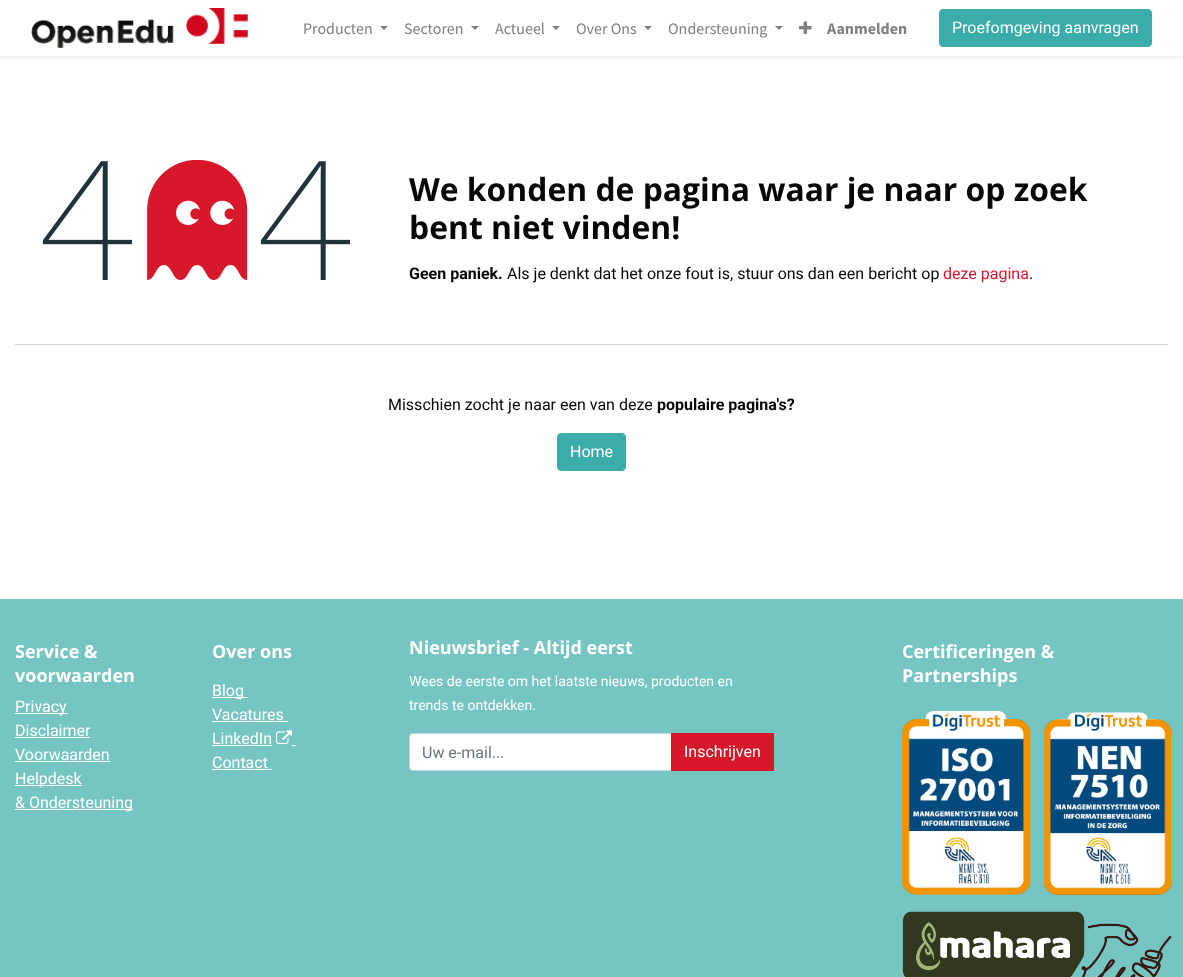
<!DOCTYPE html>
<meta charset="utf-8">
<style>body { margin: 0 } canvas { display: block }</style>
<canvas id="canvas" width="1183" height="977"></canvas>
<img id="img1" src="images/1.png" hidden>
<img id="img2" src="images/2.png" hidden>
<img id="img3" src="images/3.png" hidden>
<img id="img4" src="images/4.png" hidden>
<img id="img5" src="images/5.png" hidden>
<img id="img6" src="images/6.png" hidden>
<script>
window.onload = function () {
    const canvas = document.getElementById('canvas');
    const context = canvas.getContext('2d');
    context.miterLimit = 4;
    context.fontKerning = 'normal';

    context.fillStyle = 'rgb(255, 255, 255)';
    context.fillRect(0, 0, 1183, 977);
    context.save();
    context.beginPath();
    context.rect(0, 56, 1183, 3);
    context.clip();
    context.fillStyle = 'rgba(0, 0, 0, 0.07)';
    context.filter = 'blur(2px)';
    context.beginPath();
    context.rect(0, 2, 1183, 56);
    context.fill();
    context.filter = 'none';
    context.restore();
    context.drawImage(document.getElementById('img1'), 31, 8, 217, 40);
    context.fillStyle = 'rgb(128, 128, 128)';
    context.beginPath();
    context.moveTo(380, 26);
    context.lineTo(388, 26);
    context.lineTo(384, 30);
    context.closePath();
    context.fill();
    context.beginPath();
    context.moveTo(471, 26);
    context.lineTo(479, 26);
    context.lineTo(475, 30);
    context.closePath();
    context.fill();
    context.beginPath();
    context.moveTo(552, 26);
    context.lineTo(560, 26);
    context.lineTo(556, 30);
    context.closePath();
    context.fill();
    context.beginPath();
    context.moveTo(644, 26);
    context.lineTo(652, 26);
    context.lineTo(648, 30);
    context.closePath();
    context.fill();
    context.beginPath();
    context.moveTo(775, 26);
    context.lineTo(783, 26);
    context.lineTo(779, 30);
    context.closePath();
    context.fill();
    context.drawImage(document.getElementById('img2'), 799, 21, 13, 13);
    context.fillStyle = 'rgb(58, 173, 170)';
    context.beginPath();
    context.roundRect(939.5, 9.5, 212, 37, 3.5);
    context.fill();
    context.strokeStyle = 'rgb(58, 173, 170)';
    context.stroke();
    context.drawImage(document.getElementById('img3'), 42, 160, 308, 120);
    context.fillStyle = 'rgb(206, 212, 218)';
    context.fillRect(15, 344, 1153, 1);
    context.fillStyle = 'rgb(58, 173, 170)';
    context.beginPath();
    context.roundRect(557.5, 433.5, 68, 37, 3.5);
    context.fill();
    context.stroke();
    context.fillStyle = 'rgb(117, 197, 195)';
    context.fillRect(0, 599, 1183, 378);
    context.fillStyle = 'rgb(255, 255, 255)';
    context.fillRect(15, 713, 52, 1);
    context.fillRect(15, 737, 75, 1);
    context.fillRect(15, 761, 95, 1);
    context.fillRect(15, 785, 67, 1);
    context.fillRect(15, 809, 118, 1);
    context.fillRect(212, 697, 36, 1);
    context.fillRect(212, 721, 76, 1);
    context.fillRect(212, 745, 60, 1);
    context.drawImage(document.getElementById('img4'), 276, 730, 16, 14);
    context.fillRect(292, 745, 4, 1);
    context.fillRect(212, 769, 60, 1);
    context.beginPath();
    context.roundRect(409.5, 733.5, 262, 37, [3.5, 0, 0, 3.5]);
    context.fill();
    context.strokeStyle = 'rgb(206, 212, 218)';
    context.stroke();
    context.fillStyle = 'rgb(215, 24, 42)';
    context.fillRect(671, 733, 103, 38);
    context.drawImage(document.getElementById('img5'), 902, 711, 270, 184);
    context.drawImage(document.getElementById('img6'), 902, 911, 270, 66);
    context.font = '16px Source Sans Pro';
    context.fillStyle = 'rgb(128, 128, 128)';
    context.fillText('Producten', 303, 34);
    context.fillText('Sectoren', 404, 34);
    context.fillText('Actueel', 495, 34);
    context.fillText('Over Ons', 576, 34);
    context.fillText('Ondersteuning', 668, 34);
    context.font = 'bold 16px Source Sans Pro';
    context.fillText('Aanmelden', 827, 34);
    context.font = '16px Roboto';
    context.fillStyle = 'rgb(255, 255, 255)';
    context.fillText('Proefomgeving aanvragen', 952, 33);
    context.font = 'bold 31.85px Open Sans';
    context.fillStyle = 'rgb(7, 7, 7)';
    context.fillText('We konden de pagina waar je naar op zoek', 409, 201);
    context.fillText('bent niet vinden!', 409, 239);
    context.font = 'bold 16px Roboto';
    context.fillText('Geen paniek.', 409, 279);
    context.font = '16px Roboto';
    context.fillText('Als je denkt dat het onze fout is, stuur ons dan een bericht op', 507, 279);
    context.fillStyle = 'rgb(215, 24, 42)';
    context.fillText('deze pagina', 943, 279);
    context.fillStyle = 'rgb(7, 7, 7)';
    context.fillText('.', 1029, 279);
    context.fillText('Misschien zocht je naar een van deze', 388, 410);
    context.font = 'bold 16px Roboto';
    context.fillText('populaire pagina\'s?', 657, 410);
    context.font = '16px Roboto';
    context.fillStyle = 'rgb(255, 255, 255)';
    context.fillText('Home', 570, 457);
    context.font = 'bold 18px Open Sans';
    context.fillText('Service &', 15, 658);
    context.fillText('voorwaarden', 15, 682);
    context.font = '16px Roboto';
    context.fillText('Privacy', 15, 712);
    context.fillText('Disclaimer', 15, 736);
    context.fillText('Voorwaarden', 15, 760);
    context.fillText('Helpdesk', 15, 784);
    context.fillText('& Ondersteuning', 15, 808);
    context.font = 'bold 18px Open Sans';
    context.fillText('Over ons', 212, 658);
    context.font = '16px Roboto';
    context.fillText('Blog', 212, 696);
    context.fillText('Vacatures', 212, 720);
    context.fillText('LinkedIn', 212, 744);
    context.fillText('Contact', 212, 768);
    context.font = 'bold 18px Open Sans';
    context.fillText('Nieuwsbrief - Altijd eerst', 409, 654);
    context.font = '14px Roboto';
    context.fillText('Wees de eerste om het laatste nieuws, producten en', 409, 686);
    context.fillText('trends te ontdekken.', 409, 710);
    context.font = '16px Roboto';
    context.fillStyle = 'rgb(108, 117, 125)';
    context.fillText('Uw e-mail...', 422, 758);
    context.fillStyle = 'rgb(255, 255, 255)';
    context.fillText('Inschrijven', 684, 757);
    context.font = 'bold 18px Open Sans';
    context.fillText('Certificeringen &', 902, 658);
    context.fillText('Partnerships', 902, 682);
};
</script>
